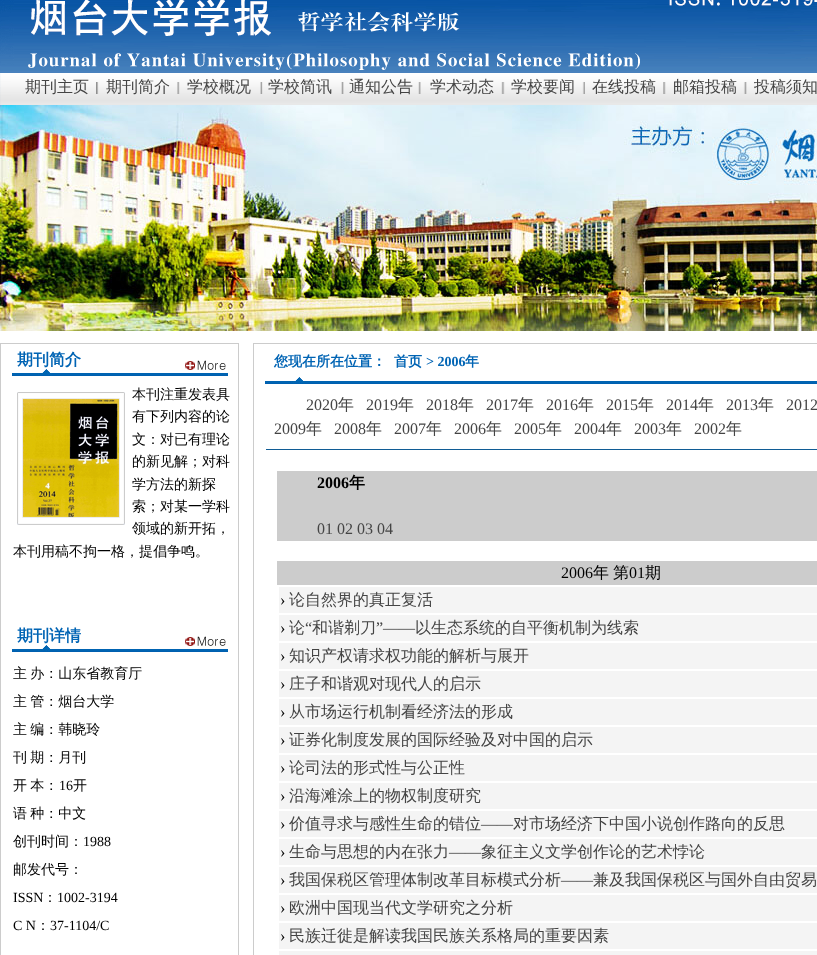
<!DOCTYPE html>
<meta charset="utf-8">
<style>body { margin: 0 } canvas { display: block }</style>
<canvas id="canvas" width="817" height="955"></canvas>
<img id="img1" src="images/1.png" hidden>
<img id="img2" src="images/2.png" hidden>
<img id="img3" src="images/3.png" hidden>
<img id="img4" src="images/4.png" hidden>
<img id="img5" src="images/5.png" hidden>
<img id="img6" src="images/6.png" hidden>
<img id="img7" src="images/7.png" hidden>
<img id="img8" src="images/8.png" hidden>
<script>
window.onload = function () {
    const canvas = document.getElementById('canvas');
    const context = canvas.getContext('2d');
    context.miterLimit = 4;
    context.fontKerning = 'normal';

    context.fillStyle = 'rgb(255, 255, 255)';
    context.fillRect(0, 0, 817, 955);
    context.drawImage(document.getElementById('img1'), 0, 0, 817, 73);
    context.drawImage(document.getElementById('img2'), 1, 0, 816, 70);
    context.drawImage(document.getElementById('img3'), 0, 73, 817, 32);
    context.drawImage(document.getElementById('img4'), 0, 105, 817, 226);
    context.strokeStyle = 'rgb(204, 204, 204)';
    context.strokeRect(0.5, 343.5, 238, 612);
    context.drawImage(document.getElementById('img5'), 12, 369, 216, 7);
    context.drawImage(document.getElementById('img6'), 185, 360, 41, 10);
    context.drawImage(document.getElementById('img7'), 17, 392, 108, 133);
    context.drawImage(document.getElementById('img5'), 12, 645, 216, 7);
    context.drawImage(document.getElementById('img6'), 185, 636, 41, 10);
    context.strokeRect(253.5, 343.5, 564, 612);
    context.drawImage(document.getElementById('img8'), 265, 377, 552, 7);
    context.fillStyle = 'rgb(16, 92, 149)';
    context.fillRect(266, 449, 551, 1);
    context.fillStyle = 'rgb(204, 204, 204)';
    context.fillRect(277, 471, 540, 70);
    context.fillRect(277, 561, 540, 24);
    context.fillStyle = 'rgb(244, 244, 244)';
    context.fillRect(279, 587, 538, 26);
    context.fillRect(279, 615, 538, 26);
    context.fillRect(279, 643, 538, 26);
    context.fillRect(279, 671, 538, 26);
    context.fillRect(279, 699, 538, 26);
    context.fillRect(279, 727, 538, 26);
    context.fillRect(279, 755, 538, 26);
    context.fillRect(279, 783, 538, 26);
    context.fillRect(279, 811, 538, 26);
    context.fillRect(279, 839, 538, 26);
    context.fillRect(279, 867, 538, 26);
    context.fillRect(279, 895, 538, 26);
    context.fillRect(279, 923, 538, 26);
    context.fillRect(279, 951, 538, 4);
    context.font = '500 16px WenQuanYi Zen Hei';
    context.fillStyle = 'rgb(68, 68, 68)';
    context.fillText('期刊主页', 25, 92);
    context.fillText('期刊简介', 106, 92);
    context.fillText('学校概况', 187, 92);
    context.fillText('学校简讯', 268, 92);
    context.fillText('通知公告', 349, 92);
    context.fillText('学术动态', 430, 92);
    context.fillText('学校要闻', 511, 92);
    context.fillText('在线投稿', 592, 92);
    context.fillText('邮箱投稿', 673, 92);
    context.fillText('投稿须知', 754, 92);
    context.font = 'bold 16px WenQuanYi Zen Hei';
    context.fillStyle = 'rgb(0, 100, 180)';
    context.fillText('期刊简介', 17, 365);
    context.font = '500 14px WenQuanYi Zen Hei';
    context.fillStyle = 'rgb(0, 0, 0)';
    context.fillText('本刊注重发表具', 132, 399);
    context.fillText('有下列内容的论', 132, 421);
    context.fillText('文：对已有理论', 132, 444);
    context.fillText('的新见解；对科', 132, 466);
    context.fillText('学方法的新探', 132, 489);
    context.fillText('索；对某一学科', 132, 511);
    context.fillText('领域的新开拓，', 132, 533);
    context.fillText('本刊用稿不拘一格，提倡争鸣。', 13, 556);
    context.font = 'bold 16px WenQuanYi Zen Hei';
    context.fillStyle = 'rgb(0, 100, 180)';
    context.fillText('期刊详情', 17, 641);
    context.wordSpacing = '-1px';
    context.font = '500 14px WenQuanYi Zen Hei';
    context.fillStyle = 'rgb(0, 0, 0)';
    context.fillText('主 办：山东省教育厅', 13, 678);
    context.fillText('主 管：烟台大学', 13, 706);
    context.fillText('主 编：韩晓玲', 13, 734);
    context.fillText('刊 期：月刊', 13, 762);
    context.fillText('开 本：', 13, 790);
    context.wordSpacing = '0px';
    context.font = '14px Liberation Serif';
    context.fillText('16', 59, 790);
    context.font = '500 14px WenQuanYi Zen Hei';
    context.fillText('开', 73, 790);
    context.wordSpacing = '-1px';
    context.fillText('语 种：中文', 13, 818);
    context.wordSpacing = '0px';
    context.fillText('创刊时间：', 13, 846);
    context.font = '14px Liberation Serif';
    context.fillText('1988', 83, 846);
    context.font = '500 14px WenQuanYi Zen Hei';
    context.fillText('邮发代号：', 13, 874);
    context.font = '14px Liberation Serif';
    context.fillText('ISSN', 13, 902);
    context.font = '500 14px WenQuanYi Zen Hei';
    context.fillText('：', 43, 902);
    context.font = '14px Liberation Serif';
    context.fillText('1002-3194', 57, 902);
    context.fillText('C N', 13, 930);
    context.font = '500 14px WenQuanYi Zen Hei';
    context.fillText('：', 36, 930);
    context.font = '14px Liberation Serif';
    context.fillText('37-1104/C', 50, 930);
    context.font = 'bold 14px WenQuanYi Zen Hei';
    context.fillStyle = 'rgb(0, 100, 180)';
    context.fillText('您现在所在位置：', 274, 366);
    context.fillText('首页', 394, 366);
    context.font = 'bold 14px Liberation Serif';
    context.fillText('> 2006', 426, 366);
    context.font = 'bold 14px WenQuanYi Zen Hei';
    context.fillText('年', 465, 366);
    context.font = '16px Liberation Serif';
    context.fillStyle = 'rgb(68, 68, 68)';
    context.fillText('2020', 306, 410);
    context.font = '500 16px WenQuanYi Zen Hei';
    context.fillText('年', 338, 410);
    context.font = '16px Liberation Serif';
    context.fillText('2019', 366, 410);
    context.font = '500 16px WenQuanYi Zen Hei';
    context.fillText('年', 398, 410);
    context.font = '16px Liberation Serif';
    context.fillText('2018', 426, 410);
    context.font = '500 16px WenQuanYi Zen Hei';
    context.fillText('年', 458, 410);
    context.font = '16px Liberation Serif';
    context.fillText('2017', 486, 410);
    context.font = '500 16px WenQuanYi Zen Hei';
    context.fillText('年', 518, 410);
    context.font = '16px Liberation Serif';
    context.fillText('2016', 546, 410);
    context.font = '500 16px WenQuanYi Zen Hei';
    context.fillText('年', 578, 410);
    context.font = '16px Liberation Serif';
    context.fillText('2015', 606, 410);
    context.font = '500 16px WenQuanYi Zen Hei';
    context.fillText('年', 638, 410);
    context.font = '16px Liberation Serif';
    context.fillText('2014', 666, 410);
    context.font = '500 16px WenQuanYi Zen Hei';
    context.fillText('年', 698, 410);
    context.font = '16px Liberation Serif';
    context.fillText('2013', 726, 410);
    context.font = '500 16px WenQuanYi Zen Hei';
    context.fillText('年', 758, 410);
    context.font = '16px Liberation Serif';
    context.fillText('2012', 786, 410);
    context.fillText('2009', 274, 434);
    context.font = '500 16px WenQuanYi Zen Hei';
    context.fillText('年', 306, 434);
    context.font = '16px Liberation Serif';
    context.fillText('2008', 334, 434);
    context.font = '500 16px WenQuanYi Zen Hei';
    context.fillText('年', 366, 434);
    context.font = '16px Liberation Serif';
    context.fillText('2007', 394, 434);
    context.font = '500 16px WenQuanYi Zen Hei';
    context.fillText('年', 426, 434);
    context.font = '16px Liberation Serif';
    context.fillText('2006', 454, 434);
    context.font = '500 16px WenQuanYi Zen Hei';
    context.fillText('年', 486, 434);
    context.font = '16px Liberation Serif';
    context.fillText('2005', 514, 434);
    context.font = '500 16px WenQuanYi Zen Hei';
    context.fillText('年', 546, 434);
    context.font = '16px Liberation Serif';
    context.fillText('2004', 574, 434);
    context.font = '500 16px WenQuanYi Zen Hei';
    context.fillText('年', 606, 434);
    context.font = '16px Liberation Serif';
    context.fillText('2003', 634, 434);
    context.font = '500 16px WenQuanYi Zen Hei';
    context.fillText('年', 666, 434);
    context.font = '16px Liberation Serif';
    context.fillText('2002', 694, 434);
    context.font = '500 16px WenQuanYi Zen Hei';
    context.fillText('年', 726, 434);
    context.font = 'bold 16px Liberation Serif';
    context.fillStyle = 'rgb(0, 0, 0)';
    context.fillText('2006', 317, 488);
    context.font = 'bold 16px WenQuanYi Zen Hei';
    context.fillText('年', 349, 488);
    context.font = '16px Liberation Serif';
    context.fillStyle = 'rgb(68, 68, 68)';
    context.fillText('01 02 03 04', 317, 534);
    context.fillStyle = 'rgb(0, 0, 0)';
    context.fillText('2006', 561, 578);
    context.font = '500 16px WenQuanYi Zen Hei';
    context.fillText('年', 593, 578);
    context.fillText('第', 613, 578);
    context.font = '16px Liberation Serif';
    context.fillText('01', 629, 578);
    context.font = '500 16px WenQuanYi Zen Hei';
    context.fillText('期', 645, 578);
    context.font = '16px Liberation Serif';
    context.fillText('›', 280, 605);
    context.font = '500 16px WenQuanYi Zen Hei';
    context.fillStyle = 'rgb(68, 68, 68)';
    context.fillText('论自然界的真正复活', 289, 605);
    context.font = '16px Liberation Serif';
    context.fillStyle = 'rgb(0, 0, 0)';
    context.fillText('›', 280, 633);
    context.font = '500 16px WenQuanYi Zen Hei';
    context.fillStyle = 'rgb(68, 68, 68)';
    context.fillText('论', 289, 633);
    context.font = '16px Liberation Serif';
    context.fillText('“', 305, 633);
    context.font = '500 16px WenQuanYi Zen Hei';
    context.fillText('和谐剃刀', 312, 633);
    context.font = '16px Liberation Serif';
    context.fillText('”——', 376, 633);
    context.font = '500 16px WenQuanYi Zen Hei';
    context.fillText('以生态系统的自平衡机制为线索', 415, 633);
    context.font = '16px Liberation Serif';
    context.fillStyle = 'rgb(0, 0, 0)';
    context.fillText('›', 280, 661);
    context.font = '500 16px WenQuanYi Zen Hei';
    context.fillStyle = 'rgb(68, 68, 68)';
    context.fillText('知识产权请求权功能的解析与展开', 289, 661);
    context.font = '16px Liberation Serif';
    context.fillStyle = 'rgb(0, 0, 0)';
    context.fillText('›', 280, 689);
    context.font = '500 16px WenQuanYi Zen Hei';
    context.fillStyle = 'rgb(68, 68, 68)';
    context.fillText('庄子和谐观对现代人的启示', 289, 689);
    context.font = '16px Liberation Serif';
    context.fillStyle = 'rgb(0, 0, 0)';
    context.fillText('›', 280, 717);
    context.font = '500 16px WenQuanYi Zen Hei';
    context.fillStyle = 'rgb(68, 68, 68)';
    context.fillText('从市场运行机制看经济法的形成', 289, 717);
    context.font = '16px Liberation Serif';
    context.fillStyle = 'rgb(0, 0, 0)';
    context.fillText('›', 280, 745);
    context.font = '500 16px WenQuanYi Zen Hei';
    context.fillStyle = 'rgb(68, 68, 68)';
    context.fillText('证券化制度发展的国际经验及对中国的启示', 289, 745);
    context.font = '16px Liberation Serif';
    context.fillStyle = 'rgb(0, 0, 0)';
    context.fillText('›', 280, 773);
    context.font = '500 16px WenQuanYi Zen Hei';
    context.fillStyle = 'rgb(68, 68, 68)';
    context.fillText('论司法的形式性与公正性', 289, 773);
    context.font = '16px Liberation Serif';
    context.fillStyle = 'rgb(0, 0, 0)';
    context.fillText('›', 280, 801);
    context.font = '500 16px WenQuanYi Zen Hei';
    context.fillStyle = 'rgb(68, 68, 68)';
    context.fillText('沿海滩涂上的物权制度研究', 289, 801);
    context.font = '16px Liberation Serif';
    context.fillStyle = 'rgb(0, 0, 0)';
    context.fillText('›', 280, 829);
    context.font = '500 16px WenQuanYi Zen Hei';
    context.fillStyle = 'rgb(68, 68, 68)';
    context.fillText('价值寻求与感性生命的错位', 289, 829);
    context.font = '16px Liberation Serif';
    context.fillText('——', 481, 829);
    context.font = '500 16px WenQuanYi Zen Hei';
    context.fillText('对市场经济下中国小说创作路向的反思', 513, 829);
    context.font = '16px Liberation Serif';
    context.fillStyle = 'rgb(0, 0, 0)';
    context.fillText('›', 280, 857);
    context.font = '500 16px WenQuanYi Zen Hei';
    context.fillStyle = 'rgb(68, 68, 68)';
    context.fillText('生命与思想的内在张力', 289, 857);
    context.font = '16px Liberation Serif';
    context.fillText('——', 449, 857);
    context.font = '500 16px WenQuanYi Zen Hei';
    context.fillText('象征主义文学创作论的艺术悖论', 481, 857);
    context.font = '16px Liberation Serif';
    context.fillStyle = 'rgb(0, 0, 0)';
    context.fillText('›', 280, 885);
    context.font = '500 16px WenQuanYi Zen Hei';
    context.fillStyle = 'rgb(68, 68, 68)';
    context.fillText('我国保税区管理体制改革目标模式分析', 289, 885);
    context.font = '16px Liberation Serif';
    context.fillText('——', 561, 885);
    context.font = '500 16px WenQuanYi Zen Hei';
    context.fillText('兼及我国保税区与国外自由贸易', 593, 885);
    context.font = '16px Liberation Serif';
    context.fillStyle = 'rgb(0, 0, 0)';
    context.fillText('›', 280, 913);
    context.font = '500 16px WenQuanYi Zen Hei';
    context.fillStyle = 'rgb(68, 68, 68)';
    context.fillText('欧洲中国现当代文学研究之分析', 289, 913);
    context.font = '16px Liberation Serif';
    context.fillStyle = 'rgb(0, 0, 0)';
    context.fillText('›', 280, 941);
    context.font = '500 16px WenQuanYi Zen Hei';
    context.fillStyle = 'rgb(68, 68, 68)';
    context.fillText('民族迁徙是解读我国民族关系格局的重要因素', 289, 941);
};
</script>
